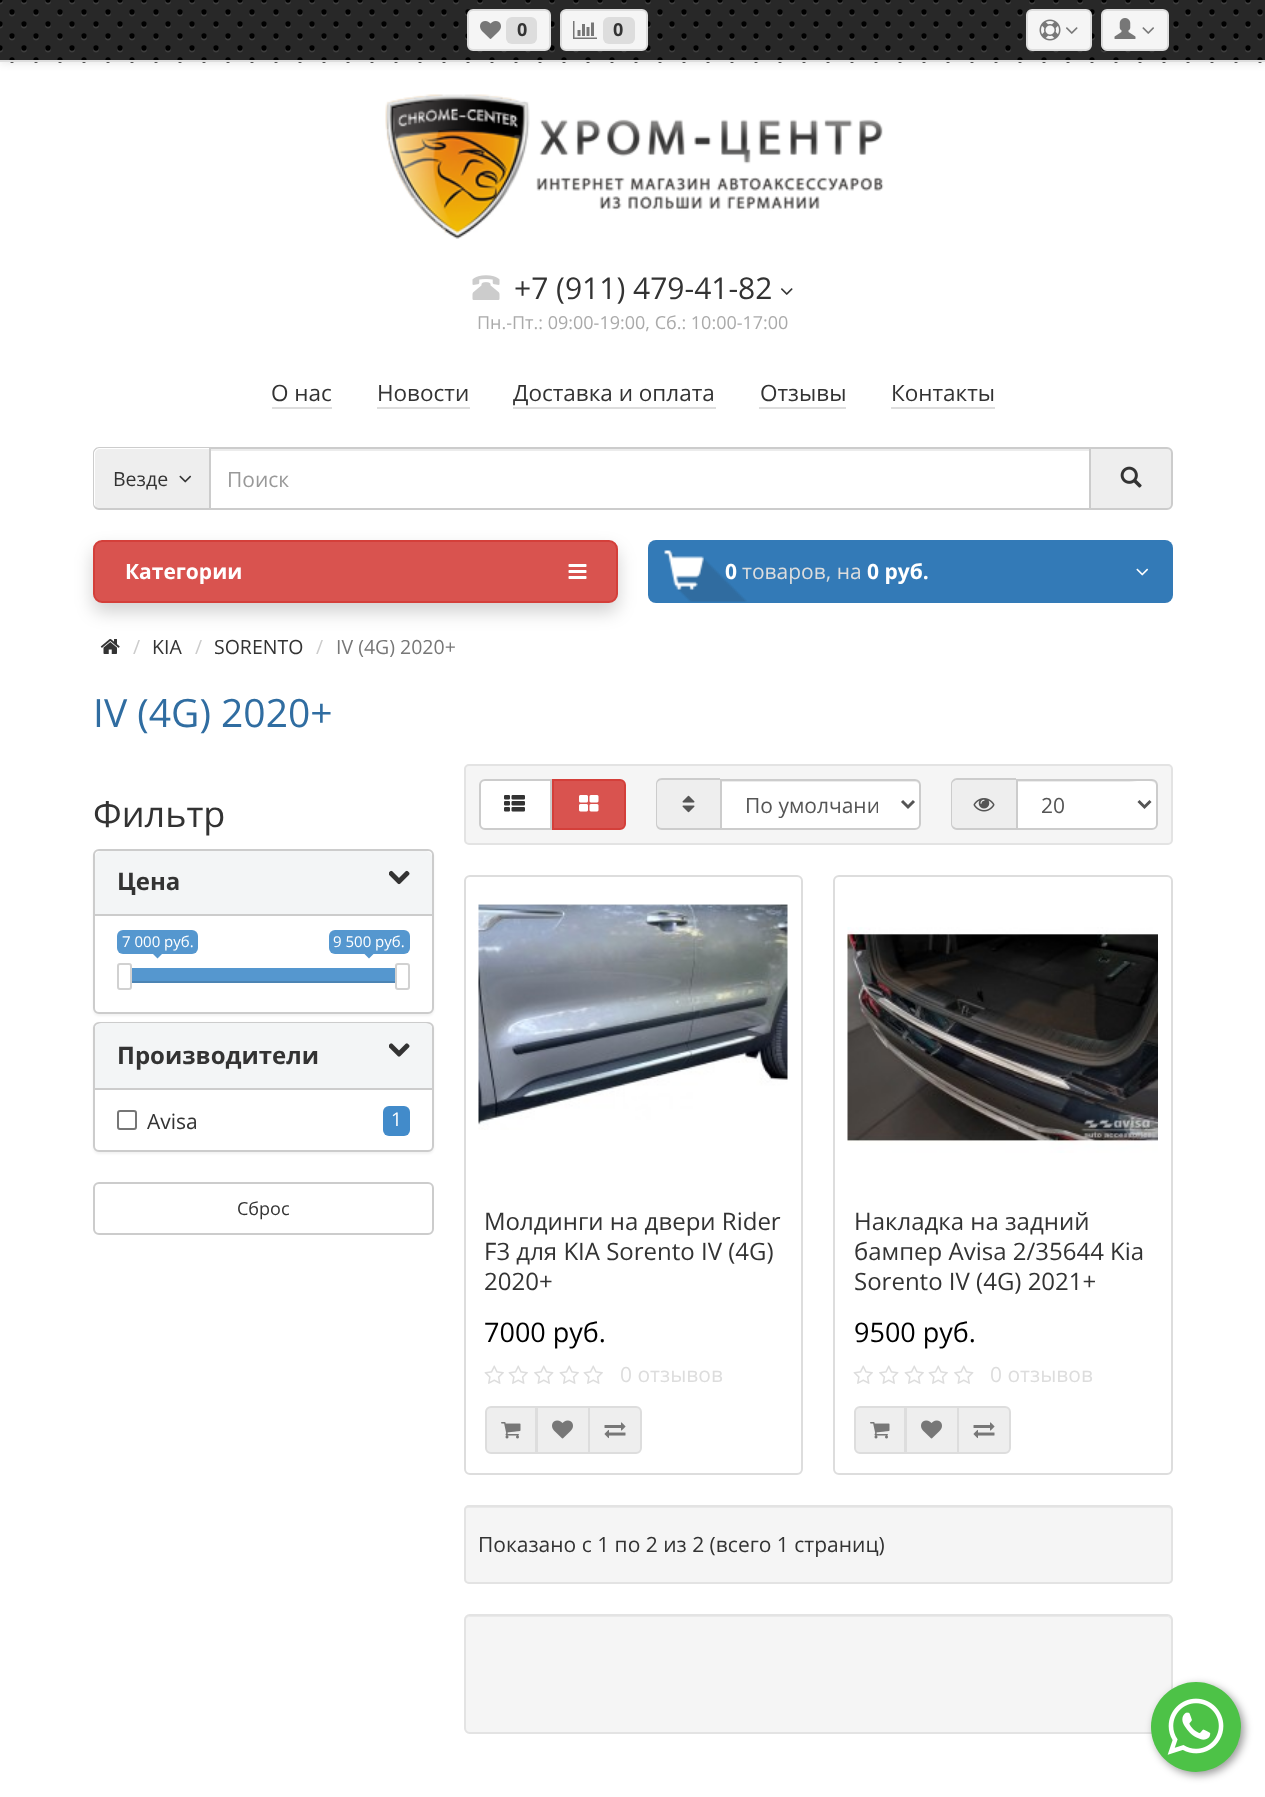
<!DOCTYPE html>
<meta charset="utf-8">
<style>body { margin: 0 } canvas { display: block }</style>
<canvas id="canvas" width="1265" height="1797"></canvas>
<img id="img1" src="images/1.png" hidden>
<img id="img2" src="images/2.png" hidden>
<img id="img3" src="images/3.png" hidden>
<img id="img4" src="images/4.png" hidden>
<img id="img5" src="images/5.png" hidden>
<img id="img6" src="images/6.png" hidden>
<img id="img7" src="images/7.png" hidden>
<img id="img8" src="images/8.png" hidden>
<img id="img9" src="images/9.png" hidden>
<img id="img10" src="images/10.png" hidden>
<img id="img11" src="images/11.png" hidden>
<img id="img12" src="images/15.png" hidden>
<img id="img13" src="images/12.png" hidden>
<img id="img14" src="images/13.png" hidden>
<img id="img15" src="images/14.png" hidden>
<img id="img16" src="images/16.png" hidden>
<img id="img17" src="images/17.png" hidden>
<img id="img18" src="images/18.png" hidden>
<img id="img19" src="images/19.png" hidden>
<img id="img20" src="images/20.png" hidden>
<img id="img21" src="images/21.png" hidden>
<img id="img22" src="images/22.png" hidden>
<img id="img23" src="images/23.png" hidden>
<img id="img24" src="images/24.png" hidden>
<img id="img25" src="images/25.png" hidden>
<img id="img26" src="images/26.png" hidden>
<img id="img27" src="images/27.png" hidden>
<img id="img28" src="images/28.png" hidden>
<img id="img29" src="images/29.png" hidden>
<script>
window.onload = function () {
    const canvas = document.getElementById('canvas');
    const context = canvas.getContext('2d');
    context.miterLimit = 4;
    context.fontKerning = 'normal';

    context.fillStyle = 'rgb(255, 255, 255)';
    context.fillRect(0, 0, 1265, 1797);
    context.fillStyle = 'rgba(0, 0, 0, 0.1)';
    context.filter = 'blur(4px)';
    context.beginPath();
    context.rect(0, 2, 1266, 61);
    context.fill();
    context.filter = 'none';
    context.fillStyle = 'rgb(40, 40, 40)';
    context.fillRect(0, 0, 1265, 60);
    context.beginPath();
    context.moveTo(0, 1.5);
    context.lineTo(1248.3, 1.5);
    context.strokeStyle = 'rgb(62, 62, 62)';
    context.lineWidth = 5.9;
    context.lineCap = 'round';
    context.setLineDash([0, 24]);
    context.stroke();
    context.beginPath();
    context.moveTo(0, 25.5);
    context.lineTo(1248.3, 25.5);
    context.stroke();
    context.beginPath();
    context.moveTo(0, 49.5);
    context.lineTo(1248.3, 49.5);
    context.stroke();
    context.beginPath();
    context.moveTo(12, 13.5);
    context.lineTo(1260.3, 13.5);
    context.stroke();
    context.beginPath();
    context.moveTo(12, 37.5);
    context.lineTo(1260.3, 37.5);
    context.stroke();
    context.beginPath();
    context.moveTo(12, 61.5);
    context.lineTo(1260.3, 61.5);
    context.strokeStyle = 'rgba(255, 255, 255, 0.1)';
    context.stroke();
    context.beginPath();
    context.moveTo(0, 0);
    context.lineTo(1248.3, 0);
    context.strokeStyle = 'rgb(0, 0, 0)';
    context.lineWidth = 5.3;
    context.stroke();
    context.beginPath();
    context.moveTo(0, 24);
    context.lineTo(1248.3, 24);
    context.stroke();
    context.beginPath();
    context.moveTo(0, 48);
    context.lineTo(1248.3, 48);
    context.stroke();
    context.beginPath();
    context.moveTo(12, 12);
    context.lineTo(1260.3, 12);
    context.stroke();
    context.beginPath();
    context.moveTo(12, 36);
    context.lineTo(1260.3, 36);
    context.stroke();
    context.beginPath();
    context.moveTo(12, 60);
    context.lineTo(1260.3, 60);
    context.stroke();
    context.fillStyle = 'rgb(221, 221, 221)';
    context.fillRect(0, 60, 1265, 2);
    context.fillStyle = 'rgb(245, 245, 245)';
    context.beginPath();
    context.roundRect(468, 10, 82, 40, 5);
    context.fill();
    context.strokeStyle = 'rgb(221, 221, 221)';
    context.lineWidth = 2;
    context.setLineDash([]);
    context.stroke();
    context.drawImage(document.getElementById('img1'), 480, 21, 21, 18);
    context.fillStyle = 'rgb(221, 221, 221)';
    context.beginPath();
    context.roundRect(506, 17, 31, 27, 6);
    context.fill();
    context.fillStyle = 'rgb(245, 245, 245)';
    context.beginPath();
    context.roundRect(561, 10, 86, 40, 5);
    context.fill();
    context.stroke();
    context.drawImage(document.getElementById('img2'), 573, 21, 24, 18);
    context.fillStyle = 'rgb(221, 221, 221)';
    context.beginPath();
    context.roundRect(603, 17, 32, 27, 6);
    context.fill();
    context.fillStyle = 'rgb(245, 245, 245)';
    context.beginPath();
    context.roundRect(1027, 10, 64, 40, 5);
    context.fill();
    context.stroke();
    context.drawImage(document.getElementById('img3'), 1039, 19, 22, 22);
    context.drawImage(document.getElementById('img4'), 1066, 27, 12, 7);
    context.beginPath();
    context.roundRect(1102, 10, 66, 40, 5);
    context.fill();
    context.stroke();
    context.drawImage(document.getElementById('img5'), 1114, 18, 22, 21);
    context.drawImage(document.getElementById('img6'), 1142, 27, 12, 7);
    context.drawImage(document.getElementById('img7'), 385, 94, 499, 145);
    context.drawImage(document.getElementById('img8'), 472, 275, 28, 25);
    context.drawImage(document.getElementById('img9'), 781, 288, 12, 7);
    context.fillStyle = 'rgb(221, 221, 221)';
    context.fillRect(272, 407, 60, 2);
    context.fillRect(377, 407, 93, 2);
    context.fillRect(513, 407, 203, 2);
    context.fillRect(759, 407, 87, 2);
    context.fillRect(891, 407, 104, 2);
    context.fillStyle = 'rgb(238, 238, 238)';
    context.beginPath();
    context.roundRect(95, 449, 115, 60, [5, 0, 0, 5]);
    context.fill();
    context.fillStyle = 'rgb(204, 204, 204)';
    context.beginPath();
    context.moveTo(99, 447);
    context.lineTo(210, 447);
    context.lineTo(210, 510);
    context.lineTo(99, 510);
    context.bezierCurveTo(96, 510, 93, 507, 93, 504);
    context.lineTo(93, 453);
    context.bezierCurveTo(93, 450, 96, 447, 99, 447);
    context.closePath();
    context.moveTo(99, 448);
    context.lineTo(210, 448);
    context.lineTo(210, 508);
    context.lineTo(99, 508);
    context.bezierCurveTo(97, 508, 94, 506, 94, 504);
    context.lineTo(94, 453);
    context.bezierCurveTo(94, 451, 97, 448, 99, 448);
    context.closePath();
    context.fill('evenodd');
    context.drawImage(document.getElementById('img10'), 179, 475, 13, 8);
    context.fillStyle = 'rgb(236, 236, 236)';
    context.fillRect(210, 449, 879, 2);
    context.strokeStyle = 'rgb(204, 204, 204)';
    context.strokeRect(210, 448, 880, 61);
    context.fillStyle = 'rgb(238, 238, 238)';
    context.beginPath();
    context.roundRect(1090, 448, 82, 61, [0, 5, 5, 0]);
    context.fill();
    context.stroke();
    context.drawImage(document.getElementById('img11'), 1120, 466, 22, 22);
    context.drawImage(document.getElementById('img12'), 100, 639, 20, 15);
    context.fillStyle = 'rgba(0, 0, 0, 0.18)';
    context.filter = 'blur(9px)';
    context.beginPath();
    context.roundRect(93, 549, 525, 63, 9);
    context.fill();
    context.filter = 'none';
    context.fillStyle = 'rgb(217, 83, 79)';
    context.beginPath();
    context.roundRect(94, 541, 523, 61, 8);
    context.fill();
    context.strokeStyle = 'rgb(212, 63, 58)';
    context.stroke();
    context.drawImage(document.getElementById('img13'), 568, 564, 19, 15);
    context.fillStyle = 'rgb(51, 122, 183)';
    context.beginPath();
    context.roundRect(648, 540, 525, 63, 8);
    context.fill();
    context.drawImage(document.getElementById('img14'), 664, 550, 83, 52);
    context.drawImage(document.getElementById('img15'), 1136, 568, 13, 8);
    context.fillStyle = 'rgba(0, 0, 0, 0.05)';
    context.filter = 'blur(1px)';
    context.beginPath();
    context.roundRect(93, 851, 341, 165, 6);
    context.fill();
    context.filter = 'none';
    context.fillStyle = 'rgb(255, 255, 255)';
    context.beginPath();
    context.roundRect(94, 850, 339, 163, 5);
    context.fill();
    context.strokeStyle = 'rgb(204, 204, 204)';
    context.stroke();
    context.fillStyle = 'rgb(243, 245, 246)';
    context.beginPath();
    context.roundRect(95, 851, 337, 63, [6, 6, 0, 0]);
    context.fill();
    context.drawImage(document.getElementById('img16'), 389, 870, 21, 15);
    context.fillStyle = 'rgb(204, 204, 204)';
    context.fillRect(95, 914, 337, 2);
    context.fillStyle = 'rgb(85, 151, 207)';
    context.beginPath();
    context.roundRect(117, 930, 81, 24, 6);
    context.fill();
    context.beginPath();
    context.moveTo(153, 954);
    context.lineTo(162, 954);
    context.lineTo(157.5, 958.5);
    context.closePath();
    context.fill();
    context.beginPath();
    context.roundRect(329, 930, 81, 24, 6);
    context.fill();
    context.beginPath();
    context.moveTo(364.5, 954);
    context.lineTo(373.5, 954);
    context.lineTo(369, 958.5);
    context.closePath();
    context.fill();
    context.fillStyle = 'rgb(76, 132, 180)';
    context.fillRect(125, 981, 277, 2);
    context.fillStyle = 'rgb(255, 255, 255)';
    context.beginPath();
    context.roundRect(118, 964, 13, 25, 2);
    context.fill();
    context.strokeStyle = 'rgb(209, 209, 209)';
    context.stroke();
    context.fillStyle = 'rgb(85, 151, 207)';
    context.fillRect(132, 968, 263, 13);
    context.fillStyle = 'rgb(255, 255, 255)';
    context.beginPath();
    context.roundRect(396, 964, 13, 25, 2);
    context.fill();
    context.stroke();
    context.fillStyle = 'rgba(0, 0, 0, 0.05)';
    context.filter = 'blur(1px)';
    context.beginPath();
    context.roundRect(93, 1023, 341, 131, 6);
    context.fill();
    context.filter = 'none';
    context.fillStyle = 'rgb(255, 255, 255)';
    context.beginPath();
    context.roundRect(94, 1023, 339, 128, 5);
    context.fill();
    context.strokeStyle = 'rgb(204, 204, 204)';
    context.stroke();
    context.fillStyle = 'rgb(243, 245, 246)';
    context.beginPath();
    context.roundRect(95, 1023, 337, 65, [6, 6, 0, 0]);
    context.fill();
    context.drawImage(document.getElementById('img17'), 389, 1043, 21, 14);
    context.fillStyle = 'rgb(204, 204, 204)';
    context.fillRect(95, 1088, 337, 2);
    context.beginPath();
    context.roundRect(118, 1111, 18, 18, 2);
    context.strokeStyle = 'rgb(118, 118, 118)';
    context.stroke();
    context.fillStyle = 'rgb(66, 139, 202)';
    context.beginPath();
    context.roundRect(383, 1106, 27, 30, 6);
    context.fill();
    context.beginPath();
    context.roundRect(94, 1183, 339, 51, 5);
    context.strokeStyle = 'rgb(204, 204, 204)';
    context.stroke();
    context.fillStyle = 'rgb(245, 245, 245)';
    context.beginPath();
    context.roundRect(465, 765, 707, 79, 4);
    context.fill();
    context.strokeStyle = 'rgb(227, 227, 227)';
    context.stroke();
    context.fillStyle = 'rgb(255, 255, 255)';
    context.beginPath();
    context.roundRect(480, 780, 71, 49, [5, 0, 0, 5]);
    context.fill();
    context.strokeStyle = 'rgb(204, 204, 204)';
    context.stroke();
    context.drawImage(document.getElementById('img18'), 504, 795, 21, 17);
    context.fillStyle = 'rgb(217, 83, 79)';
    context.beginPath();
    context.roundRect(553, 780, 72, 49, [0, 5, 5, 0]);
    context.fill();
    context.strokeStyle = 'rgb(212, 63, 58)';
    context.stroke();
    context.drawImage(document.getElementById('img19'), 579, 795, 20, 17);
    context.fillStyle = 'rgb(238, 238, 238)';
    context.beginPath();
    context.roundRect(656, 779, 64, 51, [6, 0, 0, 6]);
    context.fill();
    context.fillStyle = 'rgb(204, 204, 204)';
    context.beginPath();
    context.moveTo(662, 778);
    context.lineTo(720, 778);
    context.lineTo(720, 830);
    context.lineTo(662, 830);
    context.bezierCurveTo(658, 830, 656, 827, 656, 824);
    context.lineTo(656, 784);
    context.bezierCurveTo(656, 781, 658, 778, 662, 778);
    context.closePath();
    context.moveTo(662, 780);
    context.lineTo(720, 780);
    context.lineTo(720, 828);
    context.lineTo(662, 828);
    context.bezierCurveTo(659, 828, 657, 826, 657, 824);
    context.lineTo(657, 784);
    context.bezierCurveTo(657, 782, 659, 780, 662, 780);
    context.closePath();
    context.fill('evenodd');
    context.drawImage(document.getElementById('img20'), 682, 795, 13, 18);
    context.fillStyle = 'rgb(255, 255, 255)';
    context.beginPath();
    context.roundRect(720, 779, 201, 51, [0, 6, 6, 0]);
    context.fill();
    context.fillStyle = 'rgb(236, 236, 236)';
    context.beginPath();
    context.moveTo(722, 782);
    context.lineTo(915, 782);
    context.bezierCurveTo(917, 782, 920, 784, 920, 786);
    context.bezierCurveTo(920, 783, 918, 780, 915, 780);
    context.lineTo(722, 780);
    context.closePath();
    context.fill();
    context.beginPath();
    context.roundRect(721, 780, 199, 49, [0, 5, 5, 0]);
    context.strokeStyle = 'rgb(204, 204, 204)';
    context.stroke();
    context.beginPath();
    context.moveTo(902, 801);
    context.lineTo(908, 807);
    context.lineTo(914, 801);
    context.strokeStyle = 'rgb(85, 85, 85)';
    context.lineWidth = 3;
    context.lineCap = 'butt';
    context.stroke();
    context.fillStyle = 'rgb(238, 238, 238)';
    context.beginPath();
    context.roundRect(951, 779, 65, 51, [6, 0, 0, 6]);
    context.fill();
    context.fillStyle = 'rgb(204, 204, 204)';
    context.beginPath();
    context.moveTo(957, 778);
    context.lineTo(1016, 778);
    context.lineTo(1016, 830);
    context.lineTo(957, 830);
    context.bezierCurveTo(954, 830, 951, 827, 951, 824);
    context.lineTo(951, 784);
    context.bezierCurveTo(951, 781, 954, 778, 957, 778);
    context.closePath();
    context.moveTo(957, 780);
    context.lineTo(1016, 780);
    context.lineTo(1016, 828);
    context.lineTo(957, 828);
    context.bezierCurveTo(955, 828, 952, 826, 952, 824);
    context.lineTo(952, 784);
    context.bezierCurveTo(952, 782, 955, 780, 957, 780);
    context.closePath();
    context.fill('evenodd');
    context.drawImage(document.getElementById('img21'), 973, 798, 22, 14);
    context.fillStyle = 'rgb(255, 255, 255)';
    context.beginPath();
    context.roundRect(1016, 779, 142, 51, [0, 6, 6, 0]);
    context.fill();
    context.fillStyle = 'rgb(236, 236, 236)';
    context.beginPath();
    context.moveTo(1017, 782);
    context.lineTo(1130, 782);
    context.bezierCurveTo(1133, 782, 1154, 778, 1156, 785);
    context.lineTo(1156, 826);
    context.bezierCurveTo(1157, 825, 1157, 824, 1157, 823);
    context.lineTo(1157, 785);
    context.bezierCurveTo(1157, 782, 1155, 780, 1152, 780);
    context.lineTo(1017, 780);
    context.closePath();
    context.fill();
    context.beginPath();
    context.roundRect(1017, 780, 140, 49, [0, 5, 5, 0]);
    context.strokeStyle = 'rgb(204, 204, 204)';
    context.lineWidth = 2;
    context.stroke();
    context.beginPath();
    context.moveTo(1138.5, 801);
    context.lineTo(1144.5, 807);
    context.lineTo(1150.5, 801);
    context.strokeStyle = 'rgb(85, 85, 85)';
    context.lineWidth = 3;
    context.stroke();
    context.beginPath();
    context.roundRect(465, 876, 337, 598, 5);
    context.strokeStyle = 'rgb(221, 221, 221)';
    context.lineWidth = 2;
    context.stroke();
    context.drawImage(document.getElementById('img22'), 478, 904, 310, 226);
    context.drawImage(document.getElementById('img23'), 484, 1365, 20, 19);
    context.drawImage(document.getElementById('img23'), 508, 1365, 20, 19);
    context.drawImage(document.getElementById('img24'), 534, 1365, 20, 19);
    context.drawImage(document.getElementById('img23'), 559, 1365, 20, 19);
    context.drawImage(document.getElementById('img23'), 583, 1365, 20, 19);
    context.fillStyle = 'rgb(238, 238, 238)';
    context.beginPath();
    context.roundRect(486, 1407, 50, 46, [5, 0, 0, 5]);
    context.fill();
    context.stroke();
    context.drawImage(document.getElementById('img25'), 501, 1422, 20, 17);
    context.beginPath();
    context.rect(537, 1407, 52, 46);
    context.fill();
    context.stroke();
    context.drawImage(document.getElementById('img26'), 552, 1420, 21, 19);
    context.beginPath();
    context.roundRect(589, 1407, 52, 46, [0, 5, 5, 0]);
    context.fill();
    context.stroke();
    context.drawImage(document.getElementById('img27'), 604, 1422, 22, 17);
    context.beginPath();
    context.roundRect(834, 876, 338, 598, 5);
    context.stroke();
    context.drawImage(document.getElementById('img28'), 847, 927, 311, 226);
    context.drawImage(document.getElementById('img23'), 853, 1365, 20, 19);
    context.drawImage(document.getElementById('img24'), 879, 1365, 20, 19);
    context.drawImage(document.getElementById('img23'), 904, 1365, 20, 19);
    context.drawImage(document.getElementById('img23'), 928, 1365, 20, 19);
    context.drawImage(document.getElementById('img24'), 954, 1365, 20, 19);
    context.beginPath();
    context.roundRect(855, 1407, 50, 46, [5, 0, 0, 5]);
    context.fill();
    context.stroke();
    context.drawImage(document.getElementById('img25'), 870, 1422, 20, 17);
    context.beginPath();
    context.rect(906, 1407, 52, 46);
    context.fill();
    context.stroke();
    context.drawImage(document.getElementById('img26'), 921, 1420, 21, 19);
    context.beginPath();
    context.roundRect(958, 1407, 52, 46, [0, 5, 5, 0]);
    context.fill();
    context.stroke();
    context.drawImage(document.getElementById('img27'), 973, 1422, 22, 17);
    context.fillStyle = 'rgb(245, 245, 245)';
    context.beginPath();
    context.roundRect(464, 1505, 709, 79, 5);
    context.fill();
    context.fillStyle = 'rgb(233, 233, 233)';
    context.beginPath();
    context.moveTo(468, 1508);
    context.lineTo(1168, 1508);
    context.bezierCurveTo(1170, 1508, 1172, 1509, 1172, 1510);
    context.bezierCurveTo(1172, 1508, 1171, 1506, 1169, 1506);
    context.lineTo(468, 1506);
    context.bezierCurveTo(466, 1506, 465, 1508, 465, 1510);
    context.bezierCurveTo(465, 1509, 466, 1508, 468, 1508);
    context.closePath();
    context.fill();
    context.beginPath();
    context.roundRect(465, 1506, 707, 77, 4);
    context.strokeStyle = 'rgb(227, 227, 227)';
    context.stroke();
    context.fillStyle = 'rgb(245, 245, 245)';
    context.beginPath();
    context.roundRect(464, 1614, 709, 120, 6);
    context.fill();
    context.fillStyle = 'rgb(233, 233, 233)';
    context.beginPath();
    context.moveTo(470, 1617);
    context.lineTo(1167, 1617);
    context.bezierCurveTo(1169, 1617, 1172, 1619, 1172, 1622);
    context.bezierCurveTo(1172, 1619, 1170, 1616, 1167, 1616);
    context.lineTo(470, 1616);
    context.bezierCurveTo(467, 1616, 465, 1619, 465, 1622);
    context.bezierCurveTo(465, 1619, 467, 1617, 470, 1617);
    context.closePath();
    context.fill();
    context.beginPath();
    context.roundRect(465, 1615, 707, 118, 5);
    context.stroke();
    context.fillStyle = 'rgba(0, 0, 0, 0.4)';
    context.filter = 'blur(4.5px)';
    context.beginPath();
    context.roundRect(1154, 1685, 90, 90, 45);
    context.fill();
    context.filter = 'none';
    context.fillStyle = 'rgb(77, 194, 71)';
    context.beginPath();
    context.arc(1196, 1727, 45, 0, 2 * Math.PI);
    context.fill();
    context.drawImage(document.getElementById('img29'), 1167, 1698, 57, 57);
    context.font = 'bold 18px Open Sans';
    context.fillStyle = 'rgb(51, 51, 51)';
    context.fillText('0', 517, 36);
    context.fillText('0', 613, 36);
    context.font = '30px Open Sans';
    context.fillText('+7 (911) 479-41-82', 514, 299);
    context.font = '18px Open Sans';
    context.fillStyle = 'rgb(170, 170, 170)';
    context.fillText('Пн.-Пт.: 09:00-19:00, Сб.: 10:00-17:00', 477, 329);
    context.font = '22.5px Open Sans';
    context.fillStyle = 'rgb(51, 51, 51)';
    context.fillText('О нас', 271, 401);
    context.fillText('Новости', 377, 401);
    context.fillText('Доставка и оплата', 513, 401);
    context.fillText('Отзывы', 760, 401);
    context.fillText('Контакты', 891, 401);
    context.font = '19.5px Open Sans';
    context.fillText('Везде', 113, 486);
    context.font = '21px Open Sans';
    context.fillStyle = 'rgb(153, 153, 153)';
    context.fillText('Поиск', 227, 487);
    context.font = 'bold 21px Open Sans';
    context.fillStyle = 'rgb(255, 255, 255)';
    context.fillText('Категории', 125, 579);
    context.fillText('0', 725, 579);
    context.font = '21px Open Sans';
    context.fillStyle = 'rgb(221, 221, 221)';
    context.fillText('товаров, на', 742, 579);
    context.font = 'bold 21px Open Sans';
    context.fillStyle = 'rgb(255, 255, 255)';
    context.fillText('0 руб.', 867, 579);
    context.font = '19.5px Open Sans';
    context.fillStyle = 'rgb(204, 204, 204)';
    context.fillText('/', 133, 654);
    context.fillStyle = 'rgb(51, 51, 51)';
    context.fillText('KIA', 152, 654);
    context.fillStyle = 'rgb(204, 204, 204)';
    context.fillText('/', 195, 654);
    context.fillStyle = 'rgb(51, 51, 51)';
    context.fillText('SORENTO', 214, 654);
    context.fillStyle = 'rgb(204, 204, 204)';
    context.fillText('/', 316, 654);
    context.fillStyle = 'rgb(119, 119, 119)';
    context.fillText('IV (4G) 2020+', 336, 654);
    context.font = '39px Open Sans';
    context.fillStyle = 'rgb(48, 109, 161)';
    context.fillText('IV (4G) 2020+', 93, 727);
    context.font = '36px Open Sans';
    context.fillStyle = 'rgb(51, 51, 51)';
    context.fillText('Фильтр', 93, 827);
    context.font = 'bold 24px Open Sans';
    context.fillText('Цена', 117, 890);
    context.font = '15px Open Sans';
    context.fillStyle = 'rgb(255, 255, 255)';
    context.fillText('7 000 руб.', 122, 947);
    context.fillText('9 500 руб.', 333, 947);
    context.font = 'bold 24px Open Sans';
    context.fillStyle = 'rgb(51, 51, 51)';
    context.fillText('Производители', 117, 1064);
    context.font = '21px Open Sans';
    context.fillText('Avisa', 147, 1129);
    context.font = '19px Open Sans';
    context.fillStyle = 'rgb(255, 255, 255)';
    context.fillText('1', 391, 1126);
    context.font = '18px Open Sans';
    context.fillStyle = 'rgb(51, 51, 51)';
    context.fillText('Сброс', 237, 1215);
    context.save();
    context.beginPath();
    context.rect(746, 789, 132, 32);
    context.clip();
    context.font = '21px Open Sans';
    context.fillStyle = 'rgb(85, 85, 85)';
    context.fillText('По умолчани', 745, 813);
    context.restore();
    context.font = '21px Open Sans';
    context.fillStyle = 'rgb(85, 85, 85)';
    context.fillText('20', 1041, 813);
    context.font = '24px Open Sans';
    context.fillStyle = 'rgb(51, 51, 51)';
    context.fillText('Молдинги на двери Rider', 484, 1230);
    context.fillText('F3 для KIA Sorento IV (4G)', 484, 1260);
    context.fillText('2020+', 484, 1290);
    context.font = '27px Open Sans';
    context.fillStyle = 'rgb(0, 0, 0)';
    context.fillText('7000 руб.', 484, 1342);
    context.font = '21px Open Sans';
    context.fillStyle = 'rgb(221, 221, 221)';
    context.fillText('0 отзывов', 620, 1382);
    context.font = '24px Open Sans';
    context.fillStyle = 'rgb(51, 51, 51)';
    context.fillText('Накладка на задний', 854, 1230);
    context.fillText('бампер Avisa 2/35644 Kia', 854, 1260);
    context.fillText('Sorento IV (4G) 2021+', 854, 1290);
    context.font = '27px Open Sans';
    context.fillStyle = 'rgb(0, 0, 0)';
    context.fillText('9500 руб.', 854, 1342);
    context.font = '21px Open Sans';
    context.fillStyle = 'rgb(221, 221, 221)';
    context.fillText('0 отзывов', 990, 1382);
    context.fillStyle = 'rgb(51, 51, 51)';
    context.fillText('Показано с 1 по 2 из 2 (всего 1 страниц)', 478, 1552);
};
</script>
